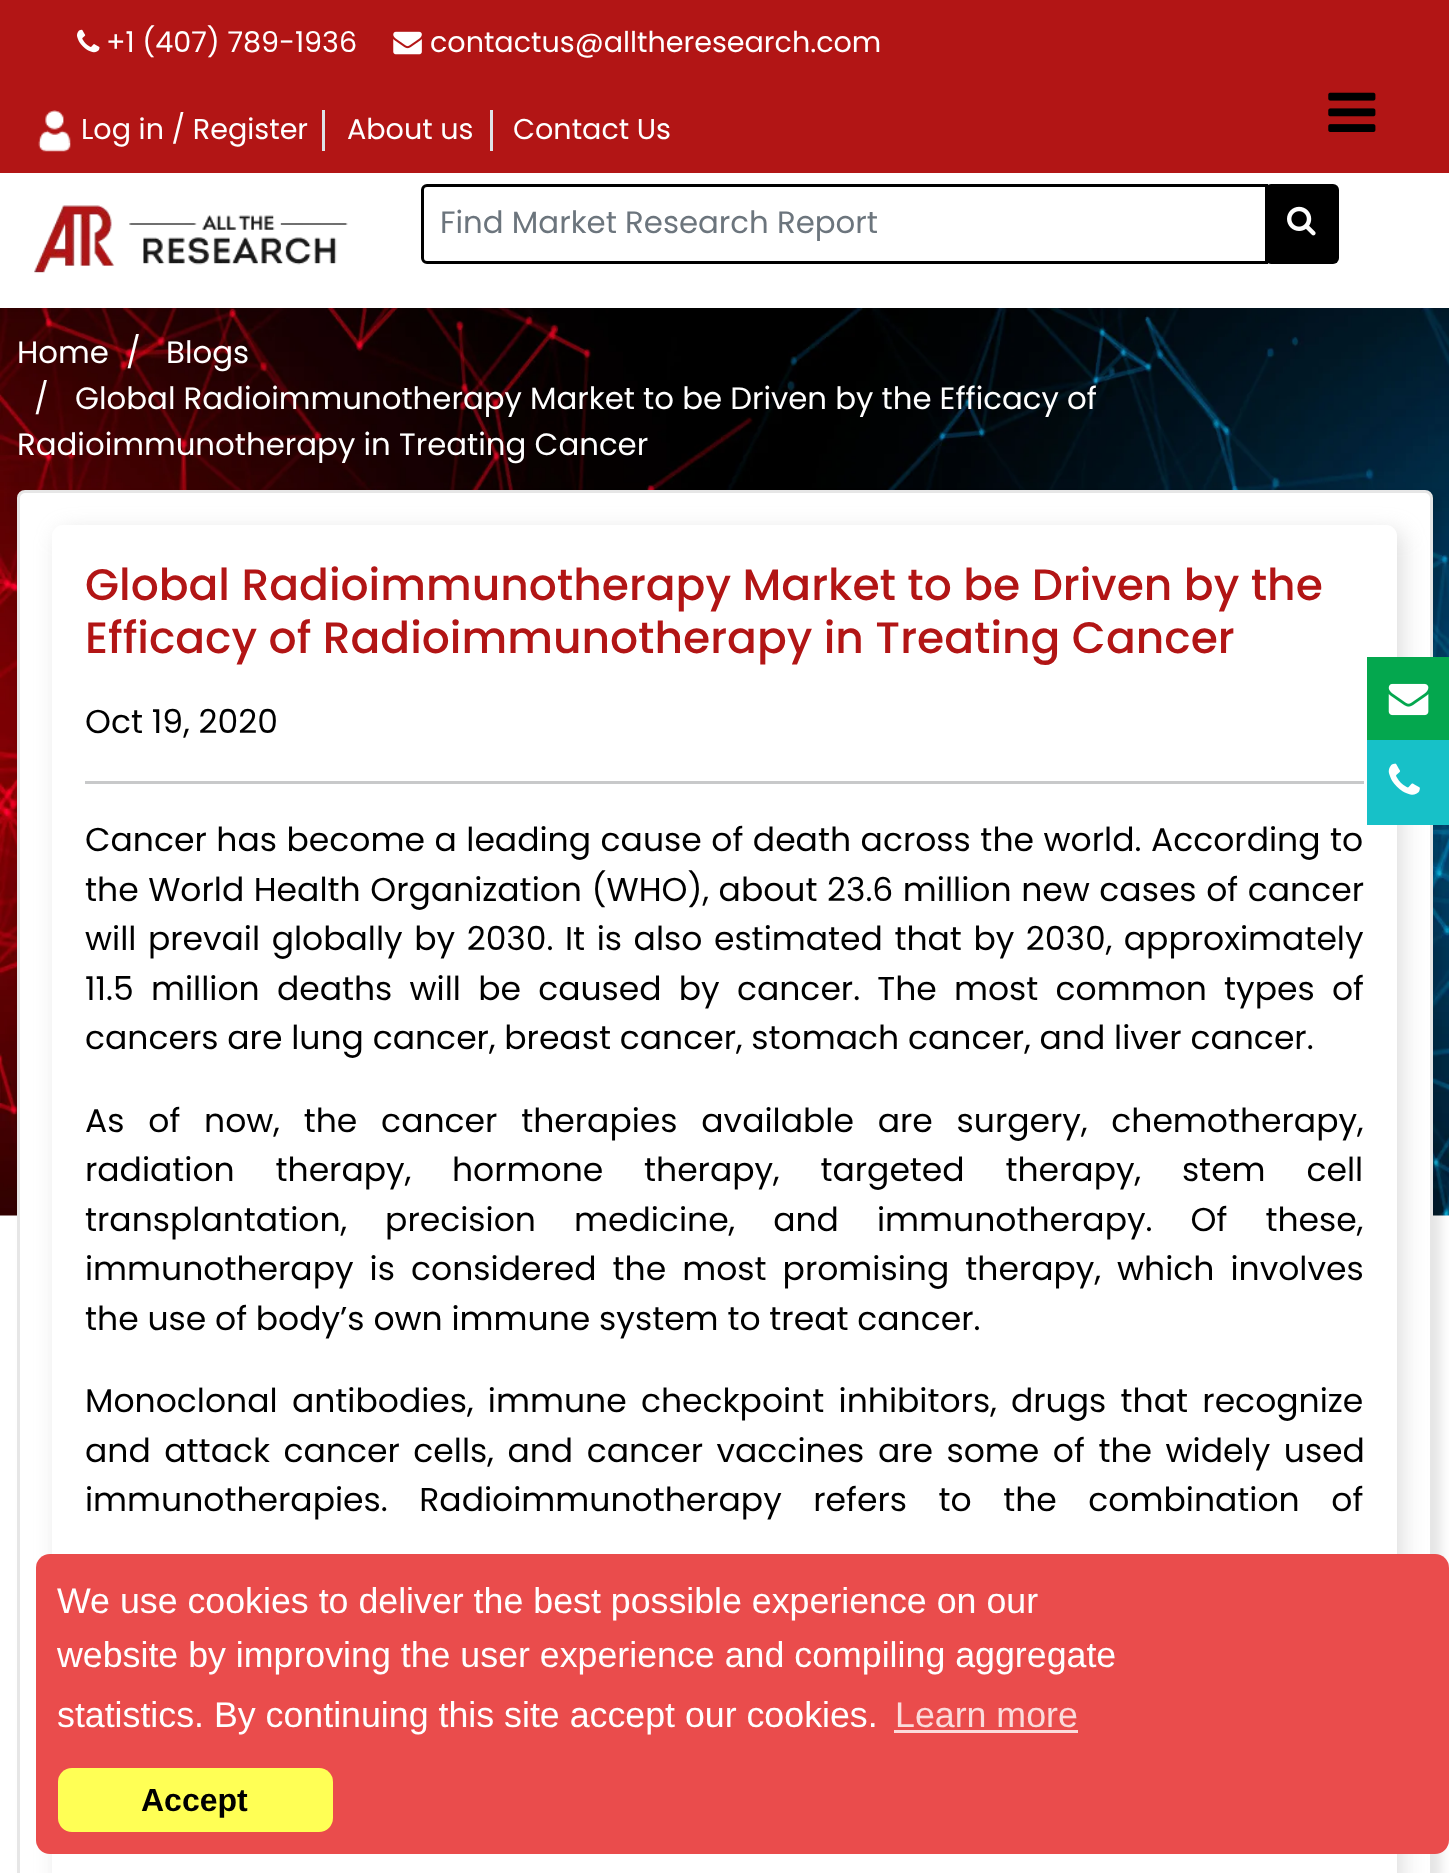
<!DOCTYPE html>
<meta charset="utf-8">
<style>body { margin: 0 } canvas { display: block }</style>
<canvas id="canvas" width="1449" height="1873"></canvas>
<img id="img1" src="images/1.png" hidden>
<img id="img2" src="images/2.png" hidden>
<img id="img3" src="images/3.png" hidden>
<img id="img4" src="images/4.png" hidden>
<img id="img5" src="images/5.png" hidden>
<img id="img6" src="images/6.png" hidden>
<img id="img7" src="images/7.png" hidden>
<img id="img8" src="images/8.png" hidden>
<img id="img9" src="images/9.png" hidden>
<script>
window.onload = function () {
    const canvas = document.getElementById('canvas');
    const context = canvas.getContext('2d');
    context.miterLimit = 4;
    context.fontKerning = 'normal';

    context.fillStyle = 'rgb(255, 255, 255)';
    context.fillRect(0, 0, 1449, 1873);
    context.fillStyle = 'rgb(178, 21, 21)';
    context.fillRect(0, 0, 1449, 173);
    context.drawImage(document.getElementById('img1'), 77, 29, 23, 24);
    context.drawImage(document.getElementById('img2'), 393, 31, 29, 24);
    context.fillStyle = 'rgb(222, 226, 230)';
    context.fillRect(322, 110, 3, 41);
    context.drawImage(document.getElementById('img3'), 38, 110, 33, 42);
    context.fillRect(490, 110, 3, 41);
    context.drawImage(document.getElementById('img4'), 1328, 92, 48, 40);
    context.drawImage(document.getElementById('img5'), 34, 205, 314, 68);
    context.beginPath();
    context.roundRect(422.5, 185.5, 844, 77, [4.5, 0, 0, 4.5]);
    context.strokeStyle = 'rgb(0, 0, 0)';
    context.lineWidth = 3;
    context.stroke();
    context.fillStyle = 'rgb(0, 0, 0)';
    context.beginPath();
    context.roundRect(1265, 184, 74, 80, 6);
    context.fill();
    context.drawImage(document.getElementById('img6'), 1287, 206, 29, 30);
    context.drawImage(document.getElementById('img7'), 0, 308, 1449, 908);
    context.fillStyle = 'rgba(0, 0, 0, 0.1)';
    context.filter = 'blur(5.5px)';
    context.beginPath();
    context.roundRect(25, 498, 1416, 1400, 8);
    context.fill();
    context.filter = 'none';
    context.fillStyle = 'rgb(255, 255, 255)';
    context.beginPath();
    context.roundRect(18.5, 491.5, 1413, 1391, 6.5);
    context.fill();
    context.strokeStyle = 'rgb(230, 230, 230)';
    context.stroke();
    context.fillStyle = 'rgba(167, 167, 167, 0.36)';
    context.filter = 'blur(11px)';
    context.beginPath();
    context.roundRect(58, 531, 1345, 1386, 11);
    context.fill();
    context.filter = 'none';
    context.fillStyle = 'rgb(255, 255, 255)';
    context.beginPath();
    context.roundRect(52, 525, 1345, 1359, 11);
    context.fill();
    context.fillStyle = 'rgb(200, 201, 202)';
    context.fillRect(85, 781, 1279, 3);
    context.fillStyle = 'rgb(4, 167, 78)';
    context.fillRect(1367, 657, 82, 83);
    context.drawImage(document.getElementById('img8'), 1388, 683, 41, 33);
    context.fillStyle = 'rgb(23, 193, 200)';
    context.fillRect(1367, 740, 82, 85);
    context.drawImage(document.getElementById('img9'), 1388, 763, 32, 32);
    context.fillStyle = 'rgb(234, 76, 76)';
    context.beginPath();
    context.roundRect(36, 1554, 1413, 300, 14);
    context.fill();
    context.fillStyle = 'rgb(251, 219, 219)';
    context.fillRect(894, 1730, 184, 3);
    context.fillStyle = 'rgb(255, 255, 85)';
    context.beginPath();
    context.roundRect(58, 1768, 275, 64, 14);
    context.fill();
    context.font = '28.6px Poppins';
    context.fillStyle = 'rgb(255, 255, 255)';
    context.fillText('+1 (407) 789-1936', 106, 52);
    context.fillText('contactus@alltheresearch.com', 430, 52);
    context.fillText('Log in / Register', 81, 139);
    context.fillText('About us', 347, 139);
    context.fillText('Contact Us', 513, 139);
    context.font = '30.8px Poppins';
    context.fillStyle = 'rgb(108, 117, 125)';
    context.fillText('Find Market Research Report', 440, 233);
    context.fillStyle = 'rgb(255, 255, 255)';
    context.fillText('Home', 17, 363);
    context.fillText('/', 126, 363);
    context.fillText('Blogs', 166, 363);
    context.fillText('/', 34, 409);
    context.wordSpacing = '-0.1px';
    context.fillText('Global Radioimmunotherapy Market to be Driven by the Efficacy of', 75, 409);
    context.wordSpacing = '0px';
    context.fillText('Radioimmunotherapy in Treating Cancer', 17, 455);
    context.font = '500 44px Poppins';
    context.fillStyle = 'rgb(178, 21, 21)';
    context.fillText('Global Radioimmunotherapy Market to be Driven by the', 85, 600);
    context.fillText('Efficacy of Radioimmunotherapy in Treating Cancer', 85, 653);
    context.font = '33px Poppins';
    context.fillStyle = 'rgb(0, 0, 0)';
    context.fillText('Oct 19, 2020', 85, 733);
    context.wordSpacing = '0.75px';
    context.fillText('Cancer has become a leading cause of death across the world. According to', 85, 851);
    context.fillText('the World Health Organization (WHO), about 23.6 million new cases of cancer', 85, 901);
    context.wordSpacing = '2.75px';
    context.fillText('will prevail globally by 2030. It is also estimated that by 2030, approximately', 85, 950);
    context.wordSpacing = '8.4px';
    context.fillText('11.5 million deaths will be caused by cancer. The most common types of', 85, 1000);
    context.wordSpacing = '0px';
    context.fillText('cancers are lung cancer, breast cancer, stomach cancer, and liver cancer.', 85, 1049);
    context.wordSpacing = '15px';
    context.fillText('As of now, the cancer therapies available are surgery, chemotherapy,', 85, 1132);
    context.wordSpacing = '32px';
    context.fillText('radiation therapy, hormone therapy, targeted therapy, stem cell', 85, 1181);
    context.wordSpacing = '29.25px';
    context.fillText('transplantation, precision medicine, and immunotherapy. Of these,', 85, 1231);
    context.wordSpacing = '7.25px';
    context.fillText('immunotherapy is considered the most promising therapy, which involves', 85, 1280);
    context.wordSpacing = '0px';
    context.fillText('the use of body’s own immune system to treat cancer.', 85, 1330);
    context.wordSpacing = '5.5px';
    context.fillText('Monoclonal antibodies, immune checkpoint inhibitors, drugs that recognize', 85, 1412);
    context.wordSpacing = '4.75px';
    context.fillText('and attack cancer cells, and cancer vaccines are some of the widely used', 85, 1462);
    context.wordSpacing = '22.75px';
    context.fillText('immunotherapies. Radioimmunotherapy refers to the combination of', 85, 1511);
    context.wordSpacing = '0px';
    context.font = '35.75px Liberation Sans';
    context.fillStyle = 'rgb(255, 255, 255)';
    context.fillText('We use cookies to deliver the best possible experience on our', 57, 1613);
    context.fillText('website by improving the user experience and compiling aggregate', 57, 1667);
    context.fillText('statistics. By continuing this site accept our cookies.', 57, 1727);
    context.fillStyle = 'rgb(251, 219, 219)';
    context.fillText('Learn more', 895, 1727);
    context.font = 'bold 32px Liberation Sans';
    context.fillStyle = 'rgb(0, 0, 0)';
    context.fillText('Accept', 141, 1811);
};
</script>
